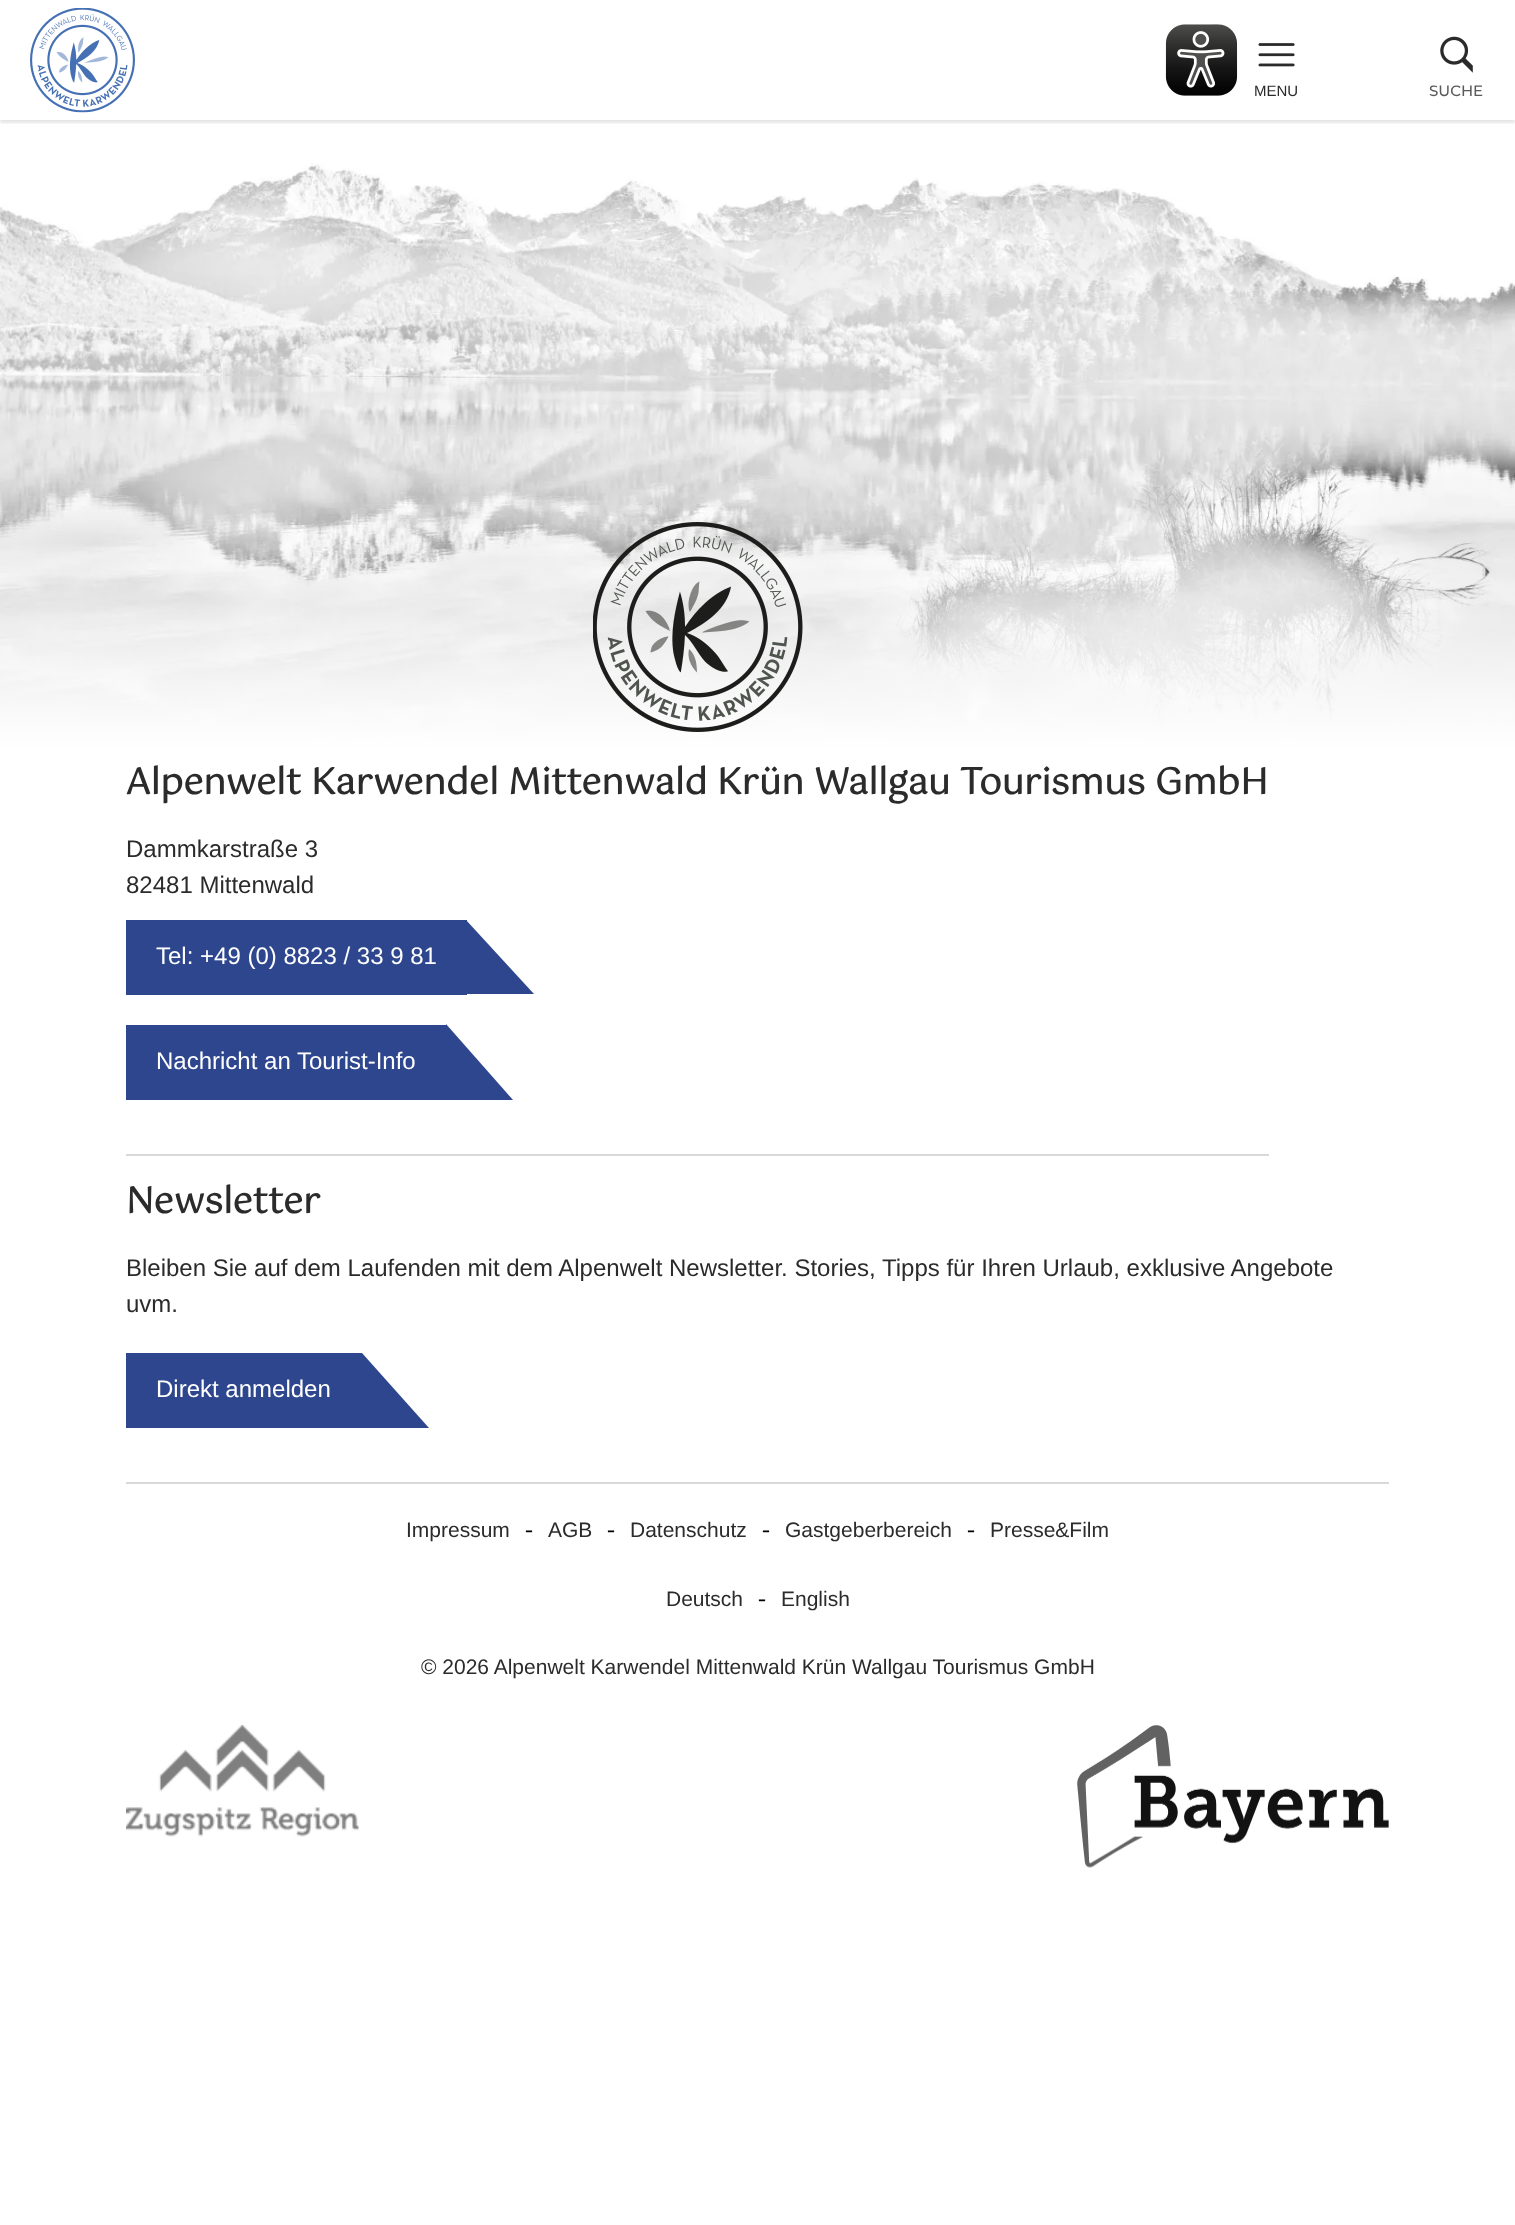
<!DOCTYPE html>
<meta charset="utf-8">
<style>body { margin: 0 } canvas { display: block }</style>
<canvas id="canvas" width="1515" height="2225"></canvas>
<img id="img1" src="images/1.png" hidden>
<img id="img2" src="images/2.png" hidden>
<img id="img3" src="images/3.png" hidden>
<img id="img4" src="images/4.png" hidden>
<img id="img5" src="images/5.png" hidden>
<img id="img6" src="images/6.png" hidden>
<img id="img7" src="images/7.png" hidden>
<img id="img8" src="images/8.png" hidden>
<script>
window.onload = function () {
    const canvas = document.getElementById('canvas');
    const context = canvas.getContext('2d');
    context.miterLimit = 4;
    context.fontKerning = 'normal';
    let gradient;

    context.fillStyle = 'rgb(255, 255, 255)';
    context.fillRect(0, 0, 1515, 2225);
    context.save();
    context.beginPath();
    context.rect(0, 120, 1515, 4);
    context.clip();
    context.fillStyle = 'rgba(0, 0, 0, 0.1)';
    context.filter = 'blur(1.5px)';
    context.beginPath();
    context.rect(0, 3, 1515, 120);
    context.fill();
    context.filter = 'none';
    context.restore();
    context.drawImage(document.getElementById('img1'), 30, 8, 105, 105);
    context.drawImage(document.getElementById('img2'), 1165, 24, 73, 72);
    context.drawImage(document.getElementById('img3'), 1258, 43, 37, 24);
    context.drawImage(document.getElementById('img4'), 1440, 36, 33, 37);
    context.drawImage(document.getElementById('img5'), 0, 163, 1515, 586);
    gradient = context.createLinearGradient(758, 498, 758, 750);
    gradient.addColorStop(0, 'rgba(255, 255, 255, 0)');
    gradient.addColorStop(1, 'rgb(255, 255, 255)');
    context.fillStyle = gradient;
    context.fillRect(0, 504, 1515, 245);
    context.fillStyle = 'rgb(217, 217, 217)';
    context.fillRect(126, 1154, 1143, 2);
    context.drawImage(document.getElementById('img6'), 593, 522, 210, 210);
    context.fillStyle = 'rgb(45, 70, 142)';
    context.fillRect(126, 920, 341, 75);
    context.beginPath();
    context.moveTo(534, 994);
    context.lineTo(466, 994);
    context.lineTo(466, 920);
    context.closePath();
    context.fill();
    context.fillRect(126, 1025, 320, 75);
    context.beginPath();
    context.moveTo(513, 1100);
    context.lineTo(446, 1100);
    context.lineTo(446, 1024);
    context.closePath();
    context.fill();
    context.fillStyle = 'rgb(217, 217, 217)';
    context.fillRect(126, 1482, 1263, 2);
    context.fillStyle = 'rgb(45, 70, 142)';
    context.fillRect(126, 1353, 236, 75);
    context.beginPath();
    context.moveTo(429, 1428);
    context.lineTo(362, 1428);
    context.lineTo(362, 1353);
    context.closePath();
    context.fill();
    context.drawImage(document.getElementById('img7'), 126, 1725, 233, 112);
    context.drawImage(document.getElementById('img8'), 1077, 1725, 312, 143);
    context.font = '15px Liberation Sans';
    context.fillStyle = 'rgb(43, 43, 43)';
    context.fillText('MENU', 1254, 96);
    context.font = '500 15px Montserrat';
    context.fillStyle = 'rgb(89, 89, 89)';
    context.fillText('SUCHE', 1429, 96);
    context.font = 'bold 36px Gotu';
    context.fillStyle = 'rgb(43, 43, 43)';
    context.fillText('Alpenwelt Karwendel Mittenwald Krün Wallgau Tourismus GmbH', 126, 794);
    context.font = '24px Liberation Sans';
    context.fillText('Dammkarstraße 3', 126, 857);
    context.fillText('82481 Mittenwald', 126, 893);
    context.fillStyle = 'rgb(255, 255, 255)';
    context.fillText('Tel: +49 (0) 8823 / 33 9 81', 156, 964);
    context.fillText('Nachricht an Tourist-Info', 156, 1069);
    context.font = 'bold 36px Gotu';
    context.fillStyle = 'rgb(43, 43, 43)';
    context.fillText('Newsletter', 126, 1213);
    context.font = '24px Liberation Sans';
    context.fillText('Bleiben Sie auf dem Laufenden mit dem Alpenwelt Newsletter. Stories, Tipps für Ihren Urlaub, exklusive Angebote', 126, 1276);
    context.fillText('uvm.', 126, 1312);
    context.fillStyle = 'rgb(255, 255, 255)';
    context.fillText('Direkt anmelden', 156, 1397);
    context.font = '21px Liberation Sans';
    context.fillStyle = 'rgb(43, 43, 43)';
    context.fillText('Impressum', 406, 1537);
    context.font = '24px Liberation Serif';
    context.fillStyle = 'rgb(0, 0, 0)';
    context.fillText('-', 525, 1537);
    context.font = '21px Liberation Sans';
    context.fillStyle = 'rgb(43, 43, 43)';
    context.fillText('AGB', 548, 1537);
    context.font = '24px Liberation Serif';
    context.fillStyle = 'rgb(0, 0, 0)';
    context.fillText('-', 607, 1537);
    context.font = '21px Liberation Sans';
    context.fillStyle = 'rgb(43, 43, 43)';
    context.fillText('Datenschutz', 630, 1537);
    context.font = '24px Liberation Serif';
    context.fillStyle = 'rgb(0, 0, 0)';
    context.fillText('-', 762, 1537);
    context.font = '21px Liberation Sans';
    context.fillStyle = 'rgb(43, 43, 43)';
    context.fillText('Gastgeberbereich', 785, 1537);
    context.font = '24px Liberation Serif';
    context.fillStyle = 'rgb(0, 0, 0)';
    context.fillText('-', 967, 1537);
    context.font = '21px Liberation Sans';
    context.fillStyle = 'rgb(43, 43, 43)';
    context.fillText('Presse&Film', 990, 1537);
    context.fillText('Deutsch', 666, 1606);
    context.font = '24px Liberation Serif';
    context.fillStyle = 'rgb(0, 0, 0)';
    context.fillText('-', 758, 1606);
    context.font = '21px Liberation Sans';
    context.fillStyle = 'rgb(43, 43, 43)';
    context.fillText('English', 781, 1606);
    context.fillText('© 2026 Alpenwelt Karwendel Mittenwald Krün Wallgau Tourismus GmbH', 421, 1674);
};
</script>
